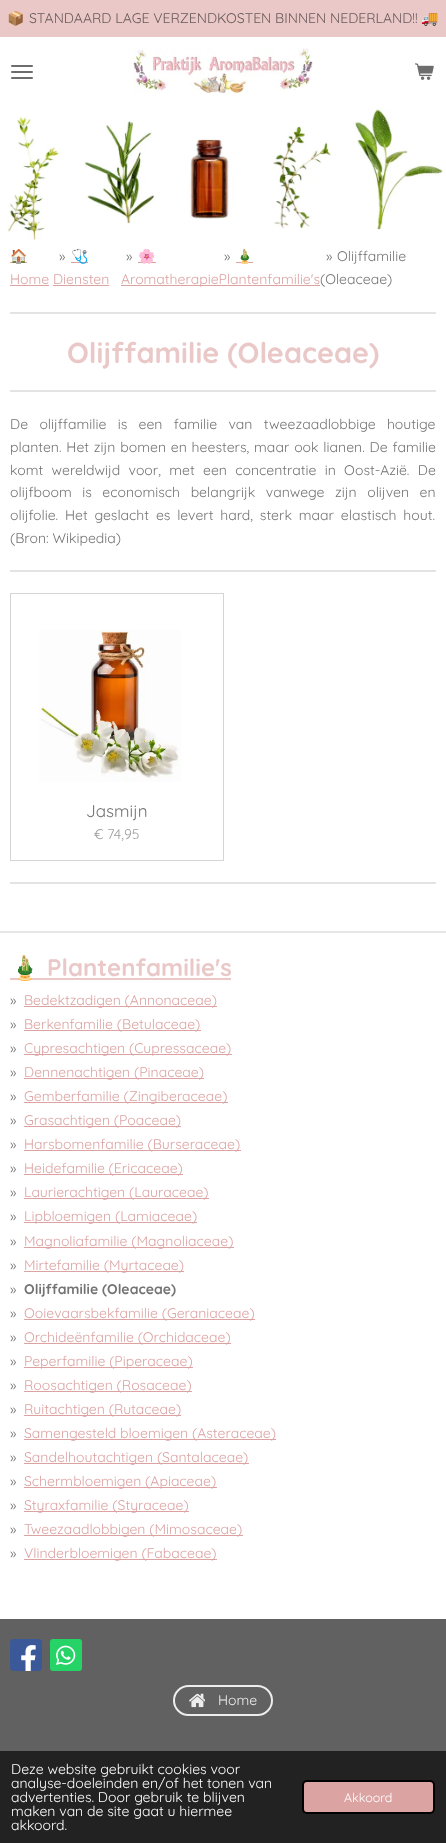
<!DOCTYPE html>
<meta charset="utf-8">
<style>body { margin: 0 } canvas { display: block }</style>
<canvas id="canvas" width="446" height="1843"></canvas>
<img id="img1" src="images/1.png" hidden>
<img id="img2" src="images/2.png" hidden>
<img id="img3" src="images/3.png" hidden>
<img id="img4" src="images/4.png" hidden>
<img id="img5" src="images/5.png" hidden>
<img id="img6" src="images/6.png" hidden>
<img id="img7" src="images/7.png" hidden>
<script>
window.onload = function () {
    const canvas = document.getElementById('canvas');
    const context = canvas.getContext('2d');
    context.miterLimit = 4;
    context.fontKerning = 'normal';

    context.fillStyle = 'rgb(255, 255, 255)';
    context.fillRect(0, 0, 446, 1843);
    context.fillStyle = 'rgb(234, 200, 200)';
    context.fillRect(0, 0, 446, 37);
    context.fillStyle = 'rgb(109, 109, 109)';
    context.beginPath();
    context.roundRect(11, 71, 22, 2, 1);
    context.fill();
    context.beginPath();
    context.roundRect(11, 65, 22, 2, 1);
    context.fill();
    context.beginPath();
    context.roundRect(11, 77, 22, 2, 1);
    context.fill();
    context.drawImage(document.getElementById('img1'), 133, 48, 180, 46);
    context.drawImage(document.getElementById('img2'), 415, 63, 19, 17);
    context.drawImage(document.getElementById('img3'), 7, 107, 436, 133);
    context.fillStyle = 'rgb(220, 163, 163)';
    context.fillRect(10, 262, 17, 1);
    context.fillRect(10, 285, 39, 1);
    context.fillRect(71, 262, 17, 1);
    context.fillRect(53, 285, 56, 1);
    context.fillRect(138, 262, 18, 1);
    context.fillRect(121, 285, 199, 1);
    context.fillRect(236, 262, 17, 1);
    context.fillStyle = 'rgb(227, 227, 227)';
    context.fillRect(10, 312, 426, 2);
    context.fillRect(10, 390, 426, 2);
    context.fillRect(10, 570, 426, 2);
    context.strokeStyle = 'rgb(213, 213, 213)';
    context.strokeRect(10.5, 593.5, 213, 267);
    context.drawImage(document.getElementById('img4'), 39, 630, 142, 152);
    context.fillRect(10, 882, 426, 2);
    context.fillStyle = 'rgb(230, 230, 230)';
    context.fillRect(0, 931, 446, 2);
    context.fillStyle = 'rgb(234, 200, 200)';
    context.fillRect(10, 978, 221, 2);
    context.fillStyle = 'rgb(220, 163, 163)';
    context.fillRect(24, 1006, 193, 1);
    context.fillRect(24, 1030, 177, 1);
    context.fillRect(24, 1054, 208, 1);
    context.fillRect(24, 1078, 180, 1);
    context.fillRect(24, 1102, 204, 1);
    context.fillRect(24, 1126, 157, 1);
    context.fillRect(24, 1150, 217, 1);
    context.fillRect(24, 1174, 159, 1);
    context.fillRect(24, 1198, 185, 1);
    context.fillRect(24, 1222, 173, 1);
    context.fillRect(24, 1247, 210, 1);
    context.fillRect(24, 1271, 160, 1);
    context.fillRect(24, 1319, 231, 1);
    context.fillRect(24, 1343, 207, 1);
    context.fillRect(24, 1367, 169, 1);
    context.fillRect(24, 1391, 168, 1);
    context.fillRect(24, 1415, 157, 1);
    context.fillRect(24, 1439, 252, 1);
    context.fillRect(24, 1463, 225, 1);
    context.fillRect(24, 1487, 193, 1);
    context.fillRect(24, 1511, 165, 1);
    context.fillRect(24, 1535, 219, 1);
    context.fillRect(24, 1559, 193, 1);
    context.fillStyle = 'rgb(97, 97, 97)';
    context.fillRect(0, 1619, 446, 132);
    context.fillStyle = 'rgb(59, 89, 152)';
    context.beginPath();
    context.roundRect(10, 1639, 32, 32, 4);
    context.fill();
    context.drawImage(document.getElementById('img5'), 21, 1645, 15, 26);
    context.fillStyle = 'rgb(37, 211, 102)';
    context.beginPath();
    context.roundRect(50, 1639, 32, 32, 3);
    context.fill();
    context.drawImage(document.getElementById('img6'), 56, 1645, 20, 20);
    context.beginPath();
    context.roundRect(174, 1686, 98, 29, 14.5);
    context.strokeStyle = 'rgb(237, 237, 237)';
    context.lineWidth = 2;
    context.stroke();
    context.drawImage(document.getElementById('img7'), 189, 1693, 16, 15);
    context.fillStyle = 'rgb(34, 34, 34)';
    context.fillRect(0, 1751, 446, 92);
    context.fillStyle = 'rgb(220, 163, 163)';
    context.beginPath();
    context.roundRect(303, 1781, 131, 32, 4);
    context.fill();
    context.strokeStyle = 'rgb(0, 0, 0)';
    context.stroke();
    context.font = '14px Noto Color Emoji';
    context.fillStyle = 'rgb(105, 90, 90)';
    context.fillText('📦', 7, 23);
    context.font = '14px Quicksand';
    context.fillText('STANDAARD LAGE VERZENDKOSTEN BINNEN NEDERLAND!!', 29, 23);
    context.font = '14px Noto Color Emoji';
    context.fillText('🚚', 421, 23);
    context.fillStyle = 'rgb(220, 163, 163)';
    context.fillText('🏠', 10, 261);
    context.font = '14px Quicksand';
    context.fillText('Home Diensten', 10, 284);
    context.fillStyle = 'rgb(115, 115, 115)';
    context.fillText('»', 59, 261);
    context.font = '14px Noto Color Emoji';
    context.fillStyle = 'rgb(220, 163, 163)';
    context.fillText('🩺', 71, 261);
    context.font = '14px Quicksand';
    context.fillStyle = 'rgb(115, 115, 115)';
    context.fillText('»', 126, 261);
    context.font = '14px Noto Color Emoji';
    context.fillStyle = 'rgb(220, 163, 163)';
    context.fillText('🌸', 138, 261);
    context.font = '14px Quicksand';
    context.fillText('AromatherapiePlantenfamilie\'s', 121, 284);
    context.fillStyle = 'rgb(115, 115, 115)';
    context.fillText('»', 224, 261);
    context.font = '14px Noto Color Emoji';
    context.fillStyle = 'rgb(220, 163, 163)';
    context.fillText('🎍', 236, 261);
    context.font = '14px Quicksand';
    context.fillStyle = 'rgb(115, 115, 115)';
    context.fillText('»', 326, 261);
    context.fillText('Olijffamilie', 337, 261);
    context.fillText('(Oleaceae)', 320, 284);
    context.font = 'bold 28.75px Quicksand';
    context.fillStyle = 'rgb(234, 200, 200)';
    context.fillText('Olijffamilie (Oleaceae)', 67, 363);
    context.wordSpacing = '7.5px';
    context.font = '14px Quicksand';
    context.fillStyle = 'rgb(115, 115, 115)';
    context.fillText('De olijffamilie is een familie van tweezaadlobbige houtige', 10, 429);
    context.wordSpacing = '1px';
    context.fillText('planten. Het zijn bomen en heesters, maar ook lianen. De familie', 10, 452);
    context.wordSpacing = '4.5px';
    context.fillText('komt wereldwijd voor, met een concentratie in Oost-Azië. De', 10, 475);
    context.wordSpacing = '6.75px';
    context.fillText('olijfboom is economisch belangrijk vanwege zijn olijven en', 10, 497);
    context.wordSpacing = '3px';
    context.fillText('olijfolie. Het geslacht es levert hard, sterk maar elastisch hout.', 10, 520);
    context.wordSpacing = '0px';
    context.fillText('(Bron: Wikipedia)', 10, 543);
    context.font = '17px Quicksand';
    context.fillText('Jasmijn', 86, 817);
    context.font = '14px Quicksand';
    context.fillStyle = 'rgb(157, 157, 157)';
    context.fillText('€ 74,95', 94, 839);
    context.font = 'bold 24px Noto Color Emoji';
    context.fillStyle = 'rgb(234, 200, 200)';
    context.fillText('🎍', 10, 976);
    context.font = 'bold 24px Quicksand';
    context.fillText('Plantenfamilie\'s', 47, 976);
    context.font = '14px Quicksand';
    context.fillStyle = 'rgb(115, 115, 115)';
    context.fillText('»', 10, 1005);
    context.fillStyle = 'rgb(220, 163, 163)';
    context.fillText('Bedektzadigen (Annonaceae)', 24, 1005);
    context.fillStyle = 'rgb(115, 115, 115)';
    context.fillText('»', 10, 1029);
    context.fillStyle = 'rgb(220, 163, 163)';
    context.fillText('Berkenfamilie (Betulaceae)', 24, 1029);
    context.fillStyle = 'rgb(115, 115, 115)';
    context.fillText('»', 10, 1053);
    context.fillStyle = 'rgb(220, 163, 163)';
    context.fillText('Cypresachtigen (Cupressaceae)', 24, 1053);
    context.fillStyle = 'rgb(115, 115, 115)';
    context.fillText('»', 10, 1077);
    context.fillStyle = 'rgb(220, 163, 163)';
    context.fillText('Dennenachtigen (Pinaceae)', 24, 1077);
    context.fillStyle = 'rgb(115, 115, 115)';
    context.fillText('»', 10, 1101);
    context.fillStyle = 'rgb(220, 163, 163)';
    context.fillText('Gemberfamilie (Zingiberaceae)', 24, 1101);
    context.fillStyle = 'rgb(115, 115, 115)';
    context.fillText('»', 10, 1125);
    context.fillStyle = 'rgb(220, 163, 163)';
    context.fillText('Grasachtigen (Poaceae)', 24, 1125);
    context.fillStyle = 'rgb(115, 115, 115)';
    context.fillText('»', 10, 1149);
    context.fillStyle = 'rgb(220, 163, 163)';
    context.fillText('Harsbomenfamilie (Burseraceae)', 24, 1149);
    context.fillStyle = 'rgb(115, 115, 115)';
    context.fillText('»', 10, 1173);
    context.fillStyle = 'rgb(220, 163, 163)';
    context.fillText('Heidefamilie (Ericaceae)', 24, 1173);
    context.fillStyle = 'rgb(115, 115, 115)';
    context.fillText('»', 10, 1197);
    context.fillStyle = 'rgb(220, 163, 163)';
    context.fillText('Laurierachtigen (Lauraceae)', 24, 1197);
    context.fillStyle = 'rgb(115, 115, 115)';
    context.fillText('»', 10, 1221);
    context.fillStyle = 'rgb(220, 163, 163)';
    context.fillText('Lipbloemigen (Lamiaceae)', 24, 1221);
    context.fillStyle = 'rgb(115, 115, 115)';
    context.fillText('»', 10, 1246);
    context.fillStyle = 'rgb(220, 163, 163)';
    context.fillText('Magnoliafamilie (Magnoliaceae)', 24, 1246);
    context.fillStyle = 'rgb(115, 115, 115)';
    context.fillText('»', 10, 1270);
    context.fillStyle = 'rgb(220, 163, 163)';
    context.fillText('Mirtefamilie (Myrtaceae)', 24, 1270);
    context.fillStyle = 'rgb(115, 115, 115)';
    context.fillText('»', 10, 1294);
    context.font = 'bold 14px Quicksand';
    context.fillText('Olijffamilie (Oleaceae)', 24, 1294);
    context.font = '14px Quicksand';
    context.fillText('»', 10, 1318);
    context.fillStyle = 'rgb(220, 163, 163)';
    context.fillText('Ooievaarsbekfamilie (Geraniaceae)', 24, 1318);
    context.fillStyle = 'rgb(115, 115, 115)';
    context.fillText('»', 10, 1342);
    context.fillStyle = 'rgb(220, 163, 163)';
    context.fillText('Orchideënfamilie (Orchidaceae)', 24, 1342);
    context.fillStyle = 'rgb(115, 115, 115)';
    context.fillText('»', 10, 1366);
    context.fillStyle = 'rgb(220, 163, 163)';
    context.fillText('Peperfamilie (Piperaceae)', 24, 1366);
    context.fillStyle = 'rgb(115, 115, 115)';
    context.fillText('»', 10, 1390);
    context.fillStyle = 'rgb(220, 163, 163)';
    context.fillText('Roosachtigen (Rosaceae)', 24, 1390);
    context.fillStyle = 'rgb(115, 115, 115)';
    context.fillText('»', 10, 1414);
    context.fillStyle = 'rgb(220, 163, 163)';
    context.fillText('Ruitachtigen (Rutaceae)', 24, 1414);
    context.fillStyle = 'rgb(115, 115, 115)';
    context.fillText('»', 10, 1438);
    context.fillStyle = 'rgb(220, 163, 163)';
    context.fillText('Samengesteld bloemigen (Asteraceae)', 24, 1438);
    context.fillStyle = 'rgb(115, 115, 115)';
    context.fillText('»', 10, 1462);
    context.fillStyle = 'rgb(220, 163, 163)';
    context.fillText('Sandelhoutachtigen (Santalaceae)', 24, 1462);
    context.fillStyle = 'rgb(115, 115, 115)';
    context.fillText('»', 10, 1486);
    context.fillStyle = 'rgb(220, 163, 163)';
    context.fillText('Schermbloemigen (Apiaceae)', 24, 1486);
    context.fillStyle = 'rgb(115, 115, 115)';
    context.fillText('»', 10, 1510);
    context.fillStyle = 'rgb(220, 163, 163)';
    context.fillText('Styraxfamilie (Styraceae)', 24, 1510);
    context.fillStyle = 'rgb(115, 115, 115)';
    context.fillText('»', 10, 1534);
    context.fillStyle = 'rgb(220, 163, 163)';
    context.fillText('Tweezaadlobbigen (Mimosaceae)', 24, 1534);
    context.fillStyle = 'rgb(115, 115, 115)';
    context.fillText('»', 10, 1558);
    context.fillStyle = 'rgb(220, 163, 163)';
    context.fillText('Vlinderbloemigen (Fabaceae)', 24, 1558);
    context.fillStyle = 'rgb(237, 237, 237)';
    context.fillText('Home', 218, 1705);
    context.fillStyle = 'rgb(255, 255, 255)';
    context.fillText('Deze website gebruikt cookies voor', 11, 1774);
    context.fillText('analyse-doeleinden en/of het tonen van', 11, 1788);
    context.fillText('advertenties. Door gebruik te blijven', 11, 1802);
    context.fillText('maken van de site gaat u hiermee', 11, 1816);
    context.fillText('akkoord.', 11, 1830);
    context.font = '12.5px Quicksand';
    context.fillText('Akkoord', 344, 1802);
};
</script>
